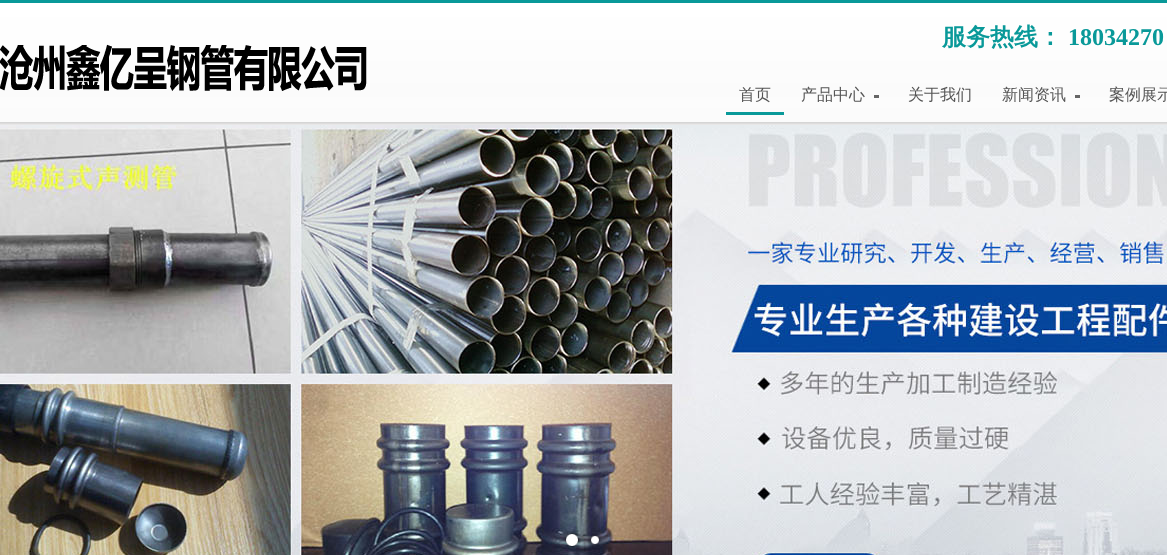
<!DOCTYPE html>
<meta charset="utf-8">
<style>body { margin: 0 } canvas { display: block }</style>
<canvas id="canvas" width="1167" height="555"></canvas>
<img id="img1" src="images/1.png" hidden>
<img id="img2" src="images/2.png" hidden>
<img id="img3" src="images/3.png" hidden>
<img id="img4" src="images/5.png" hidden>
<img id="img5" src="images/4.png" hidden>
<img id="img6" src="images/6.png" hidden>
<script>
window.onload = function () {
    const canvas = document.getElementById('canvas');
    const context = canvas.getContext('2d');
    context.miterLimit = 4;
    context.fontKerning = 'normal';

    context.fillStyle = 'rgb(255, 255, 255)';
    context.fillRect(0, 0, 1167, 555);
    context.drawImage(document.getElementById('img1'), 0, 0, 1167, 125);
    context.drawImage(document.getElementById('img2'), 0, 44, 367, 47);
    context.fillStyle = 'rgb(9, 153, 153)';
    context.fillRect(726, 112, 58, 3);
    context.fillStyle = 'rgb(102, 102, 102)';
    context.fillRect(874, 95, 5, 3);
    context.fillRect(1075, 95, 5, 3);
    context.drawImage(document.getElementById('img3'), 0, 125, 1167, 430);
    context.drawImage(document.getElementById('img4'), 565, 533, 14, 14);
    context.drawImage(document.getElementById('img5'), 563, 531, 18, 18);
    context.drawImage(document.getElementById('img6'), 588, 534, 14, 12);
    context.font = 'bold 24px WenQuanYi Zen Hei';
    context.fillStyle = 'rgb(9, 153, 153)';
    context.fillText('服务热线：', 942, 45);
    context.font = 'bold 24px Liberation Serif';
    context.fillText('18034270', 1068, 45);
    context.font = '500 16px WenQuanYi Zen Hei';
    context.fillStyle = 'rgb(85, 85, 85)';
    context.fillText('首页', 739, 100);
    context.fillText('产品中心', 801, 100);
    context.fillText('关于我们', 908, 100);
    context.fillText('新闻资讯', 1002, 100);
    context.fillText('案例展示', 1109, 100);
};
</script>
